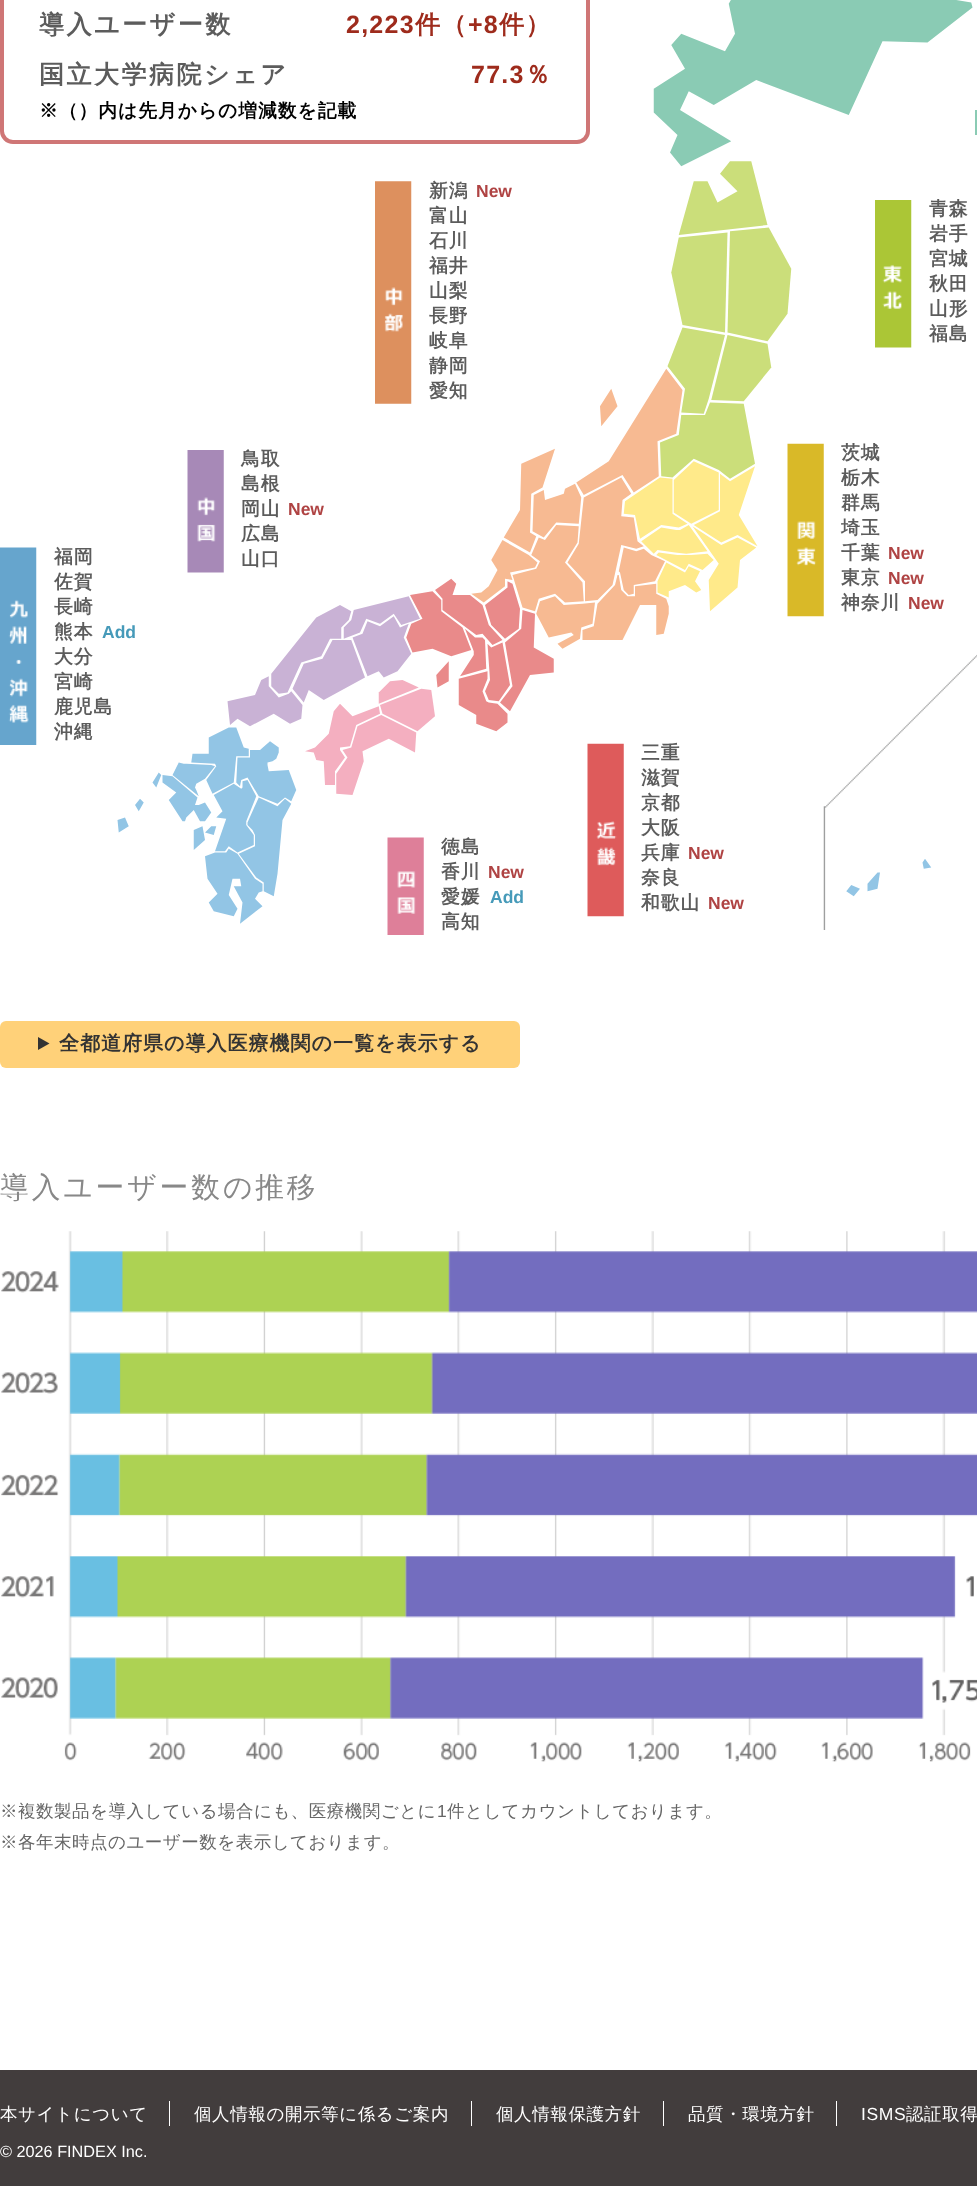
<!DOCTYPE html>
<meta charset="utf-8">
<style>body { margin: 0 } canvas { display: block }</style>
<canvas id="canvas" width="977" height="2186"></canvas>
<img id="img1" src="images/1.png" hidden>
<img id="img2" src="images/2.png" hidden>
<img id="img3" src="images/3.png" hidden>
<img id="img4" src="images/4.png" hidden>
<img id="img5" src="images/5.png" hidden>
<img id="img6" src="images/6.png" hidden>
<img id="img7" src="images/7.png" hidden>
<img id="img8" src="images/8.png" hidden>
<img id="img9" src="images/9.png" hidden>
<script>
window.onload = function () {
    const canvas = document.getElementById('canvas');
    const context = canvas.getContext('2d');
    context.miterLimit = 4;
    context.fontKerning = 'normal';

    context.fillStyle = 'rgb(255, 255, 255)';
    context.fillRect(0, 0, 977, 2186);
    context.drawImage(document.getElementById('img1'), 117, 0, 860, 930);
    context.beginPath();
    context.roundRect(2, -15, 586, 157, 11);
    context.strokeStyle = 'rgb(207, 118, 118)';
    context.lineWidth = 4;
    context.stroke();
    context.fillStyle = 'rgb(138, 203, 180)';
    context.fillRect(975, 110, 2, 25);
    context.drawImage(document.getElementById('img2'), 375, 181, 37, 223);
    context.drawImage(document.getElementById('img3'), 875, 200, 37, 148);
    context.drawImage(document.getElementById('img4'), 187, 450, 37, 123);
    context.drawImage(document.getElementById('img5'), 787, 443, 37, 174);
    context.drawImage(document.getElementById('img6'), 0, 547, 37, 198);
    context.drawImage(document.getElementById('img7'), 387, 837, 37, 98);
    context.drawImage(document.getElementById('img8'), 587, 743, 37, 174);
    context.fillStyle = 'rgb(255, 209, 121)';
    context.beginPath();
    context.roundRect(0, 1021, 520, 47, 6);
    context.fill();
    context.fillStyle = 'rgb(51, 51, 51)';
    context.beginPath();
    context.moveTo(38, 1037);
    context.lineTo(49.5, 1043.5);
    context.lineTo(38, 1050);
    context.closePath();
    context.fill();
    context.drawImage(document.getElementById('img9'), 1, 1231, 976, 531);
    context.fillStyle = 'rgb(66, 61, 61)';
    context.fillRect(0, 2070, 977, 116);
    context.fillStyle = 'rgb(255, 255, 255)';
    context.fillRect(169, 2101, 1, 25);
    context.fillRect(471, 2101, 1, 25);
    context.fillRect(663, 2101, 1, 25);
    context.fillRect(836, 2101, 1, 25);
    context.letterSpacing = '2.5px';
    context.font = 'bold 25px WenQuanYi Zen Hei';
    context.fillStyle = 'rgb(92, 92, 92)';
    context.fillText('導入ユーザー数', 39, 33);
    context.letterSpacing = '1.25px';
    context.font = 'bold 25px Liberation Sans';
    context.fillStyle = 'rgb(158, 43, 28)';
    context.fillText('2,223', 346, 33);
    context.font = 'bold 25px WenQuanYi Zen Hei';
    context.fillText('件（', 415, 33);
    context.font = 'bold 25px Liberation Sans';
    context.fillText('+8', 468, 33);
    context.font = 'bold 25px WenQuanYi Zen Hei';
    context.fillText('件）', 499, 33);
    context.letterSpacing = '2.5px';
    context.fillStyle = 'rgb(92, 92, 92)';
    context.fillText('国立大学病院シェア', 39, 83);
    context.letterSpacing = '1.25px';
    context.font = 'bold 25px Liberation Sans';
    context.fillStyle = 'rgb(158, 43, 28)';
    context.fillText('77.3', 471, 83);
    context.font = 'bold 25px WenQuanYi Zen Hei';
    context.fillText('％', 525, 83);
    context.letterSpacing = '1px';
    context.font = 'bold 18.75px WenQuanYi Zen Hei';
    context.fillStyle = 'rgb(0, 0, 0)';
    context.fillText('※（）内は先月からの増減数を記載', 39, 117);
    context.fillStyle = 'rgb(92, 92, 92)';
    context.fillText('新潟', 429, 197);
    context.letterSpacing = '0px';
    context.font = 'bold 17.5px Liberation Sans';
    context.fillStyle = 'rgb(175, 67, 67)';
    context.fillText('New', 476, 197);
    context.letterSpacing = '1px';
    context.font = 'bold 18.75px WenQuanYi Zen Hei';
    context.fillStyle = 'rgb(92, 92, 92)';
    context.fillText('富山', 429, 222);
    context.fillText('石川', 429, 247);
    context.fillText('福井', 429, 272);
    context.fillText('山梨', 429, 297);
    context.fillText('長野', 429, 322);
    context.fillText('岐阜', 429, 347);
    context.fillText('静岡', 429, 372);
    context.fillText('愛知', 429, 397);
    context.fillText('青森', 929, 215);
    context.fillText('岩手', 929, 240);
    context.fillText('宮城', 929, 265);
    context.fillText('秋田', 929, 290);
    context.fillText('山形', 929, 315);
    context.fillText('福島', 929, 340);
    context.fillText('鳥取', 241, 465);
    context.fillText('島根', 241, 490);
    context.fillText('岡山', 241, 515);
    context.letterSpacing = '0px';
    context.font = 'bold 17.5px Liberation Sans';
    context.fillStyle = 'rgb(175, 67, 67)';
    context.fillText('New', 288, 515);
    context.letterSpacing = '1px';
    context.font = 'bold 18.75px WenQuanYi Zen Hei';
    context.fillStyle = 'rgb(92, 92, 92)';
    context.fillText('広島', 241, 540);
    context.fillText('山口', 241, 565);
    context.fillText('茨城', 841, 459);
    context.fillText('栃木', 841, 484);
    context.fillText('群馬', 841, 509);
    context.fillText('埼玉', 841, 534);
    context.fillText('千葉', 841, 559);
    context.letterSpacing = '0px';
    context.font = 'bold 17.5px Liberation Sans';
    context.fillStyle = 'rgb(175, 67, 67)';
    context.fillText('New', 888, 559);
    context.letterSpacing = '1px';
    context.font = 'bold 18.75px WenQuanYi Zen Hei';
    context.fillStyle = 'rgb(92, 92, 92)';
    context.fillText('東京', 841, 584);
    context.letterSpacing = '0px';
    context.font = 'bold 17.5px Liberation Sans';
    context.fillStyle = 'rgb(175, 67, 67)';
    context.fillText('New', 888, 584);
    context.letterSpacing = '1px';
    context.font = 'bold 18.75px WenQuanYi Zen Hei';
    context.fillStyle = 'rgb(92, 92, 92)';
    context.fillText('神奈川', 841, 609);
    context.letterSpacing = '0px';
    context.font = 'bold 17.5px Liberation Sans';
    context.fillStyle = 'rgb(175, 67, 67)';
    context.fillText('New', 908, 609);
    context.letterSpacing = '1px';
    context.font = 'bold 18.75px WenQuanYi Zen Hei';
    context.fillStyle = 'rgb(92, 92, 92)';
    context.fillText('福岡', 54, 563);
    context.fillText('佐賀', 54, 588);
    context.fillText('長崎', 54, 613);
    context.fillText('熊本', 54, 638);
    context.letterSpacing = '0px';
    context.font = 'bold 17.5px Liberation Sans';
    context.fillStyle = 'rgb(70, 154, 185)';
    context.fillText('Add', 102, 638);
    context.letterSpacing = '1px';
    context.font = 'bold 18.75px WenQuanYi Zen Hei';
    context.fillStyle = 'rgb(92, 92, 92)';
    context.fillText('大分', 54, 663);
    context.fillText('宮崎', 54, 688);
    context.fillText('鹿児島', 54, 713);
    context.fillText('沖縄', 54, 738);
    context.fillText('徳島', 441, 853);
    context.fillText('香川', 441, 878);
    context.letterSpacing = '0px';
    context.font = 'bold 17.5px Liberation Sans';
    context.fillStyle = 'rgb(175, 67, 67)';
    context.fillText('New', 488, 878);
    context.letterSpacing = '1px';
    context.font = 'bold 18.75px WenQuanYi Zen Hei';
    context.fillStyle = 'rgb(92, 92, 92)';
    context.fillText('愛媛', 441, 903);
    context.letterSpacing = '0px';
    context.font = 'bold 17.5px Liberation Sans';
    context.fillStyle = 'rgb(70, 154, 185)';
    context.fillText('Add', 490, 903);
    context.letterSpacing = '1px';
    context.font = 'bold 18.75px WenQuanYi Zen Hei';
    context.fillStyle = 'rgb(92, 92, 92)';
    context.fillText('高知', 441, 928);
    context.fillText('三重', 641, 759);
    context.fillText('滋賀', 641, 784);
    context.fillText('京都', 641, 809);
    context.fillText('大阪', 641, 834);
    context.fillText('兵庫', 641, 859);
    context.letterSpacing = '0px';
    context.font = 'bold 17.5px Liberation Sans';
    context.fillStyle = 'rgb(175, 67, 67)';
    context.fillText('New', 688, 859);
    context.letterSpacing = '1px';
    context.font = 'bold 18.75px WenQuanYi Zen Hei';
    context.fillStyle = 'rgb(92, 92, 92)';
    context.fillText('奈良', 641, 884);
    context.fillText('和歌山', 641, 909);
    context.letterSpacing = '0px';
    context.font = 'bold 17.5px Liberation Sans';
    context.fillStyle = 'rgb(175, 67, 67)';
    context.fillText('New', 708, 909);
    context.letterSpacing = '1px';
    context.font = 'bold 20px WenQuanYi Zen Hei';
    context.fillStyle = 'rgb(51, 51, 51)';
    context.fillText('全都道府県の導入医療機関の一覧を表示する', 59, 1050);
    context.letterSpacing = '2.9px';
    context.font = '500 28.75px WenQuanYi Zen Hei';
    context.fillStyle = 'rgb(136, 136, 136)';
    context.fillText('導入ユーザー数の推移', 0, 1197);
    context.letterSpacing = '0.5px';
    context.font = '500 17.5px WenQuanYi Zen Hei';
    context.fillStyle = 'rgb(102, 102, 102)';
    context.fillText('※複数製品を導入している場合にも、医療機関ごとに', 0, 1817);
    context.font = '17.5px Liberation Sans';
    context.fillText('1', 437, 1817);
    context.font = '500 17.5px WenQuanYi Zen Hei';
    context.fillText('件としてカウントしております。', 447, 1817);
    context.fillText('※各年末時点のユーザー数を表示しております。', 0, 1848);
    context.letterSpacing = '0.6px';
    context.fillStyle = 'rgb(255, 255, 255)';
    context.fillText('本サイトについて', 0, 2120);
    context.fillText('個人情報の開示等に係るご案内', 194, 2120);
    context.fillText('個人情報保護方針', 496, 2120);
    context.fillText('品質・環境方針', 688, 2120);
    context.font = '17.5px Liberation Sans';
    context.fillText('ISMS', 861, 2120);
    context.font = '500 17.5px WenQuanYi Zen Hei';
    context.fillText('認証取得', 906, 2120);
    context.letterSpacing = '0px';
    context.font = '16.25px Liberation Sans';
    context.fillText('© 2026 FINDEX Inc.', 0, 2157);
};
</script>
